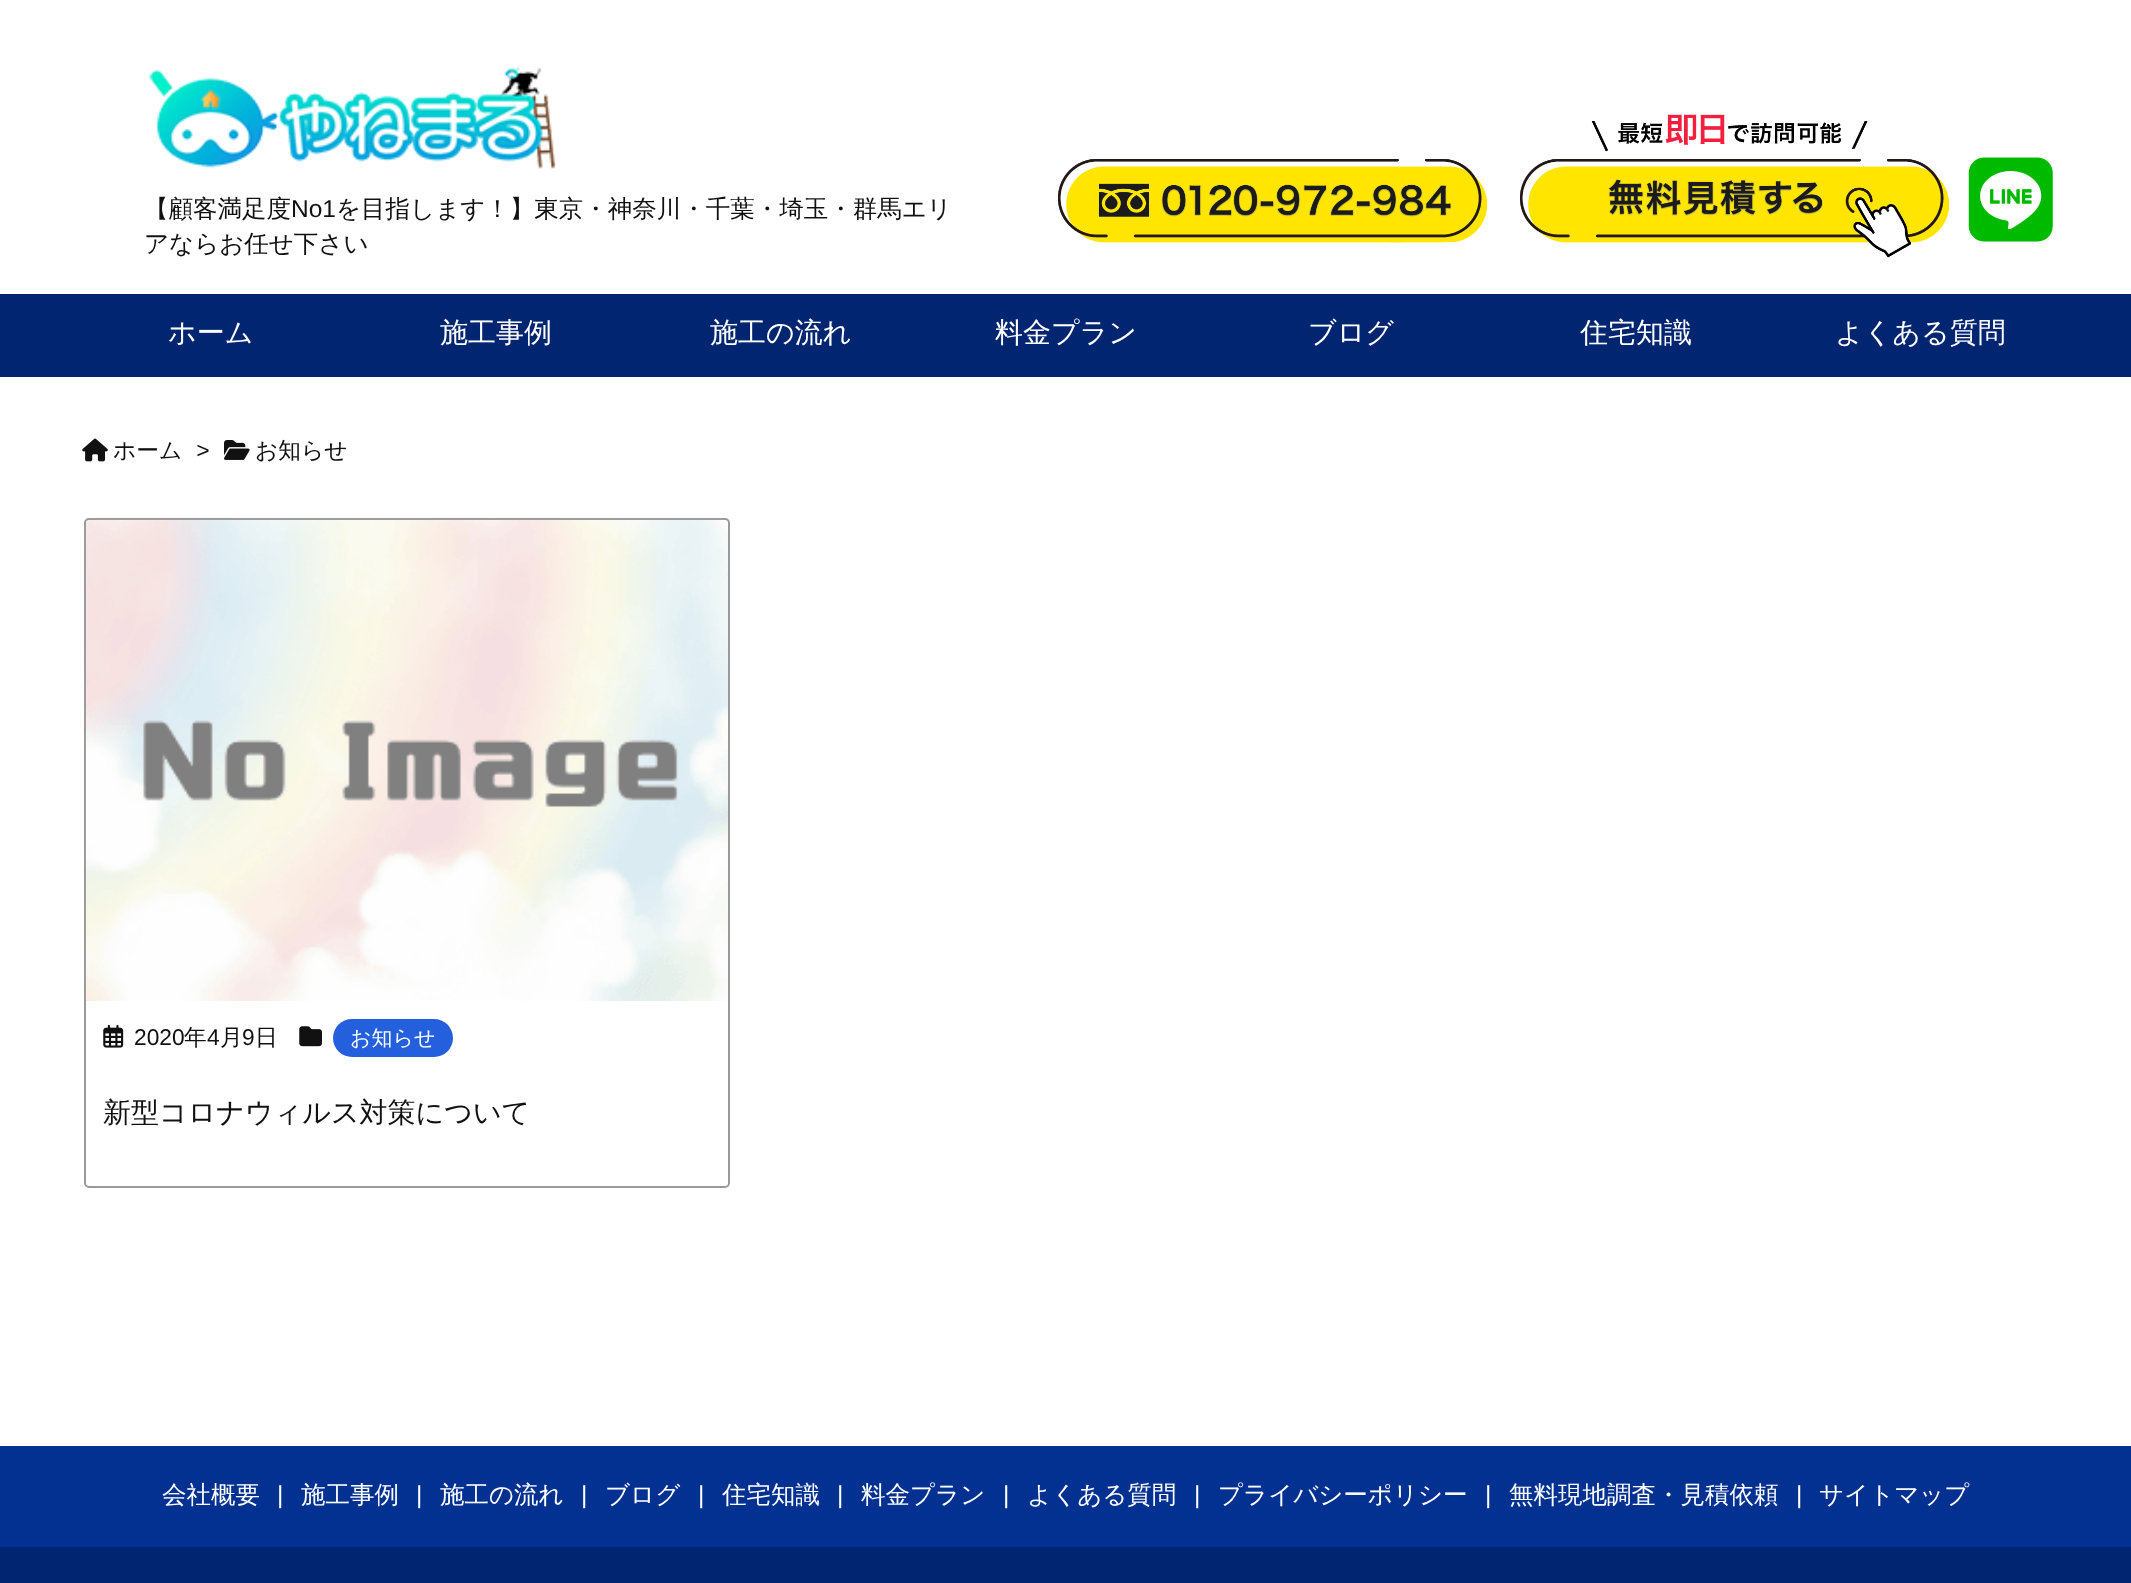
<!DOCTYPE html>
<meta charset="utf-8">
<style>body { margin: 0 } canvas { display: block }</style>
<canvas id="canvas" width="2131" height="1583"></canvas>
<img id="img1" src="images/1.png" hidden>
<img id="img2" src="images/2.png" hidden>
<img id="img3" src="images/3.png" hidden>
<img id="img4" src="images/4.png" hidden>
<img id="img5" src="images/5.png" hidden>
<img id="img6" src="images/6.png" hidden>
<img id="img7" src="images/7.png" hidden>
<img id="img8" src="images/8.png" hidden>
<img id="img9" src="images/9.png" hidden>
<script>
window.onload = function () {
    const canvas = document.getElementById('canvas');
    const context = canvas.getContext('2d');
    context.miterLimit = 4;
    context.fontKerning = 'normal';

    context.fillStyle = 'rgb(255, 255, 255)';
    context.fillRect(0, 0, 2131, 1583);
    context.drawImage(document.getElementById('img1'), 148, 66, 408, 103);
    context.drawImage(document.getElementById('img2'), 1058, 159, 429, 84);
    context.drawImage(document.getElementById('img3'), 1520, 114, 429, 144);
    context.drawImage(document.getElementById('img4'), 1968, 157, 85, 85);
    context.fillStyle = 'rgb(1, 37, 112)';
    context.fillRect(0, 294, 2131, 83);
    context.drawImage(document.getElementById('img5'), 82, 438, 26, 24);
    context.drawImage(document.getElementById('img6'), 224, 440, 26, 20);
    context.beginPath();
    context.roundRect(85, 519, 644, 668, 4);
    context.strokeStyle = 'rgb(153, 153, 153)';
    context.lineWidth = 2;
    context.stroke();
    context.drawImage(document.getElementById('img7'), 85, 519, 643, 482);
    context.drawImage(document.getElementById('img8'), 103, 1024, 21, 24);
    context.drawImage(document.getElementById('img9'), 299, 1026, 23, 21);
    context.fillStyle = 'rgb(36, 95, 221)';
    context.beginPath();
    context.roundRect(333, 1019, 120, 38, 19);
    context.fill();
    context.fillStyle = 'rgb(3, 49, 145)';
    context.fillRect(0, 1446, 2131, 101);
    context.fillStyle = 'rgb(1, 37, 112)';
    context.fillRect(0, 1547, 2131, 36);
    context.font = '500 24.5px WenQuanYi Zen Hei';
    context.fillStyle = 'rgb(17, 17, 17)';
    context.fillText('【顧客満足度', 144, 217);
    context.font = '24.5px Liberation Sans';
    context.fillText('No1', 291, 217);
    context.font = '500 24.5px WenQuanYi Zen Hei';
    context.fillText('を目指します！】東京・神奈川・千葉・埼玉・群馬エリ', 336, 217);
    context.fillText('アならお任せ下さい', 144, 252);
    context.font = '500 28px WenQuanYi Zen Hei';
    context.fillStyle = 'rgb(255, 255, 255)';
    context.fillText('ホーム', 168, 342);
    context.fillText('施工事例', 440, 342);
    context.fillText('施工の流れ', 710, 342);
    context.fillText('料金プラン', 995, 342);
    context.fillText('ブログ', 1308, 342);
    context.fillText('住宅知識', 1580, 342);
    context.fillText('よくある質問', 1835, 342);
    context.font = '500 22.75px WenQuanYi Zen Hei';
    context.fillStyle = 'rgb(17, 17, 17)';
    context.fillText('ホーム', 113, 458);
    context.font = 'italic 22.75px Liberation Sans';
    context.fillText('>', 196, 458);
    context.font = '500 22.75px WenQuanYi Zen Hei';
    context.fillText('お知らせ', 255, 458);
    context.font = '22.75px Liberation Sans';
    context.fillText('2020', 134, 1045);
    context.font = '500 22.75px WenQuanYi Zen Hei';
    context.fillText('年', 184, 1045);
    context.font = '22.75px Liberation Sans';
    context.fillText('4', 207, 1045);
    context.font = '500 22.75px WenQuanYi Zen Hei';
    context.fillText('月', 220, 1045);
    context.font = '22.75px Liberation Sans';
    context.fillText('9', 242, 1045);
    context.font = '500 22.75px WenQuanYi Zen Hei';
    context.fillText('日', 255, 1045);
    context.font = '500 21px WenQuanYi Zen Hei';
    context.fillStyle = 'rgb(255, 255, 255)';
    context.fillText('お知らせ', 350, 1045);
    context.font = '500 28px WenQuanYi Zen Hei';
    context.fillStyle = 'rgb(17, 17, 17)';
    context.fillText('新型コロナウィルス対策について', 103, 1122);
    context.font = '500 24.5px WenQuanYi Zen Hei';
    context.fillStyle = 'rgb(255, 255, 255)';
    context.fillText('会社概要', 162, 1503);
    context.font = '24.5px Liberation Sans';
    context.fillText('|', 277, 1503);
    context.font = '500 24.5px WenQuanYi Zen Hei';
    context.fillText('施工事例', 301, 1503);
    context.font = '24.5px Liberation Sans';
    context.fillText('|', 416, 1503);
    context.font = '500 24.5px WenQuanYi Zen Hei';
    context.fillText('施工の流れ', 440, 1503);
    context.font = '24.5px Liberation Sans';
    context.fillText('|', 581, 1503);
    context.font = '500 24.5px WenQuanYi Zen Hei';
    context.fillText('ブログ', 605, 1503);
    context.font = '24.5px Liberation Sans';
    context.fillText('|', 698, 1503);
    context.font = '500 24.5px WenQuanYi Zen Hei';
    context.fillText('住宅知識', 722, 1503);
    context.font = '24.5px Liberation Sans';
    context.fillText('|', 837, 1503);
    context.font = '500 24.5px WenQuanYi Zen Hei';
    context.fillText('料金プラン', 861, 1503);
    context.font = '24.5px Liberation Sans';
    context.fillText('|', 1003, 1503);
    context.font = '500 24.5px WenQuanYi Zen Hei';
    context.fillText('よくある質問', 1027, 1503);
    context.font = '24.5px Liberation Sans';
    context.fillText('|', 1194, 1503);
    context.font = '500 24.5px WenQuanYi Zen Hei';
    context.fillText('プライバシーポリシー', 1218, 1503);
    context.font = '24.5px Liberation Sans';
    context.fillText('|', 1485, 1503);
    context.font = '500 24.5px WenQuanYi Zen Hei';
    context.fillText('無料現地調査・見積依頼', 1509, 1503);
    context.font = '24.5px Liberation Sans';
    context.fillText('|', 1796, 1503);
    context.font = '500 24.5px WenQuanYi Zen Hei';
    context.fillText('サイトマップ', 1819, 1503);
};
</script>
